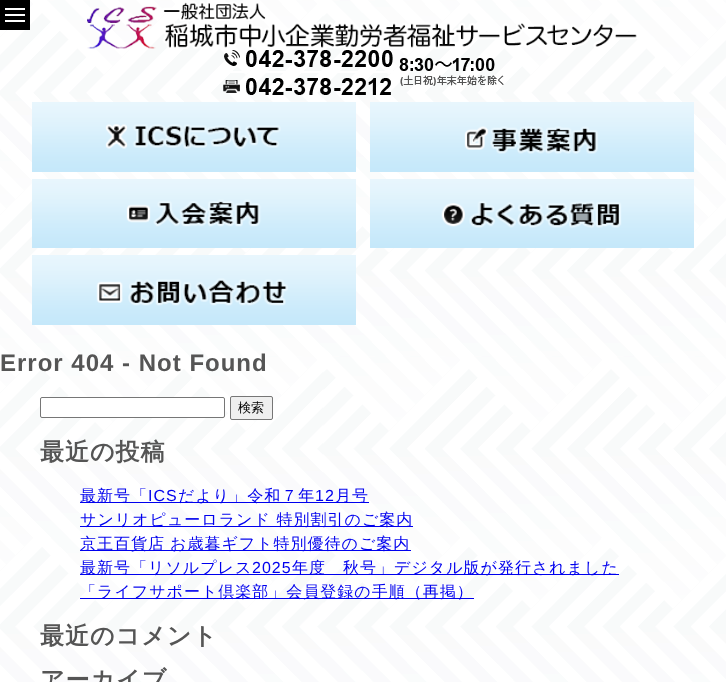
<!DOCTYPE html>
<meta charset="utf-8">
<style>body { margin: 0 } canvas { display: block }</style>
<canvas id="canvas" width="726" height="682"></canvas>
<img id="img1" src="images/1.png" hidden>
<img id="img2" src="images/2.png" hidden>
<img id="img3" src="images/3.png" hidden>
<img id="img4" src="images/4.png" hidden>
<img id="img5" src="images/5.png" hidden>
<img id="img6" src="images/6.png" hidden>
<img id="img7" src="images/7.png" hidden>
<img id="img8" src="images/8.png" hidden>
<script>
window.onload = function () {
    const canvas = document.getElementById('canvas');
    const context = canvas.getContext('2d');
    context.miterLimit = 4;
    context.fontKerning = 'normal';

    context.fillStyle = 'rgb(255, 255, 255)';
    context.fillRect(0, 0, 726, 682);
    context.drawImage(document.getElementById('img1'), 0, 0, 726, 682);
    context.fillStyle = 'rgb(0, 0, 0)';
    context.fillRect(0, 0, 30, 30);
    context.fillStyle = 'rgb(255, 255, 255)';
    context.fillRect(5, 8, 20, 2);
    context.fillRect(5, 14, 20, 2);
    context.fillRect(5, 20, 20, 2);
    context.drawImage(document.getElementById('img2'), 87, 1, 550, 48);
    context.drawImage(document.getElementById('img3'), 223, 50, 281, 45);
    context.drawImage(document.getElementById('img4'), 32, 102, 324, 70);
    context.drawImage(document.getElementById('img5'), 370, 102, 324, 70);
    context.drawImage(document.getElementById('img6'), 32, 179, 324, 69);
    context.drawImage(document.getElementById('img7'), 370, 179, 324, 69);
    context.drawImage(document.getElementById('img8'), 32, 255, 324, 70);
    context.beginPath();
    context.roundRect(40.5, 397.5, 184, 20, 1.5);
    context.fill();
    context.strokeStyle = 'rgb(118, 118, 118)';
    context.stroke();
    context.fillStyle = 'rgb(239, 239, 239)';
    context.beginPath();
    context.roundRect(230.5, 396.5, 42, 23, 1.5);
    context.fill();
    context.stroke();
    context.fillStyle = 'rgb(0, 0, 238)';
    context.fillRect(80, 502, 289, 1);
    context.fillRect(80, 526, 333, 1);
    context.fillRect(80, 550, 331, 1);
    context.fillRect(80, 574, 539, 1);
    context.fillRect(80, 598, 394, 1);
    context.letterSpacing = '1px';
    context.font = 'bold 24px Liberation Sans';
    context.fillStyle = 'rgb(85, 85, 85)';
    context.fillText('Error 404 - Not Found', 0, 371);
    context.letterSpacing = '0px';
    context.font = '500 13px WenQuanYi Zen Hei';
    context.fillStyle = 'rgb(0, 0, 0)';
    context.fillText('検索', 238, 412);
    context.letterSpacing = '1px';
    context.font = 'bold 24px WenQuanYi Zen Hei';
    context.fillStyle = 'rgb(85, 85, 85)';
    context.fillText('最近の投稿', 40, 460);
    context.font = '500 16px WenQuanYi Zen Hei';
    context.fillStyle = 'rgb(0, 0, 238)';
    context.fillText('最新号「', 80, 501);
    context.font = '16px Liberation Sans';
    context.fillText('ICS', 148, 501);
    context.font = '500 16px WenQuanYi Zen Hei';
    context.fillText('だより」令和７年', 178, 501);
    context.font = '16px Liberation Sans';
    context.fillText('12', 315, 501);
    context.font = '500 16px WenQuanYi Zen Hei';
    context.fillText('月号', 335, 501);
    context.fillText('サンリオピューロランド 特別割引のご案内', 80, 525);
    context.fillText('京王百貨店', 80, 549);
    context.fillText('お歳暮ギフト特別優待のご案内', 170, 549);
    context.fillText('最新号「リソルプレス', 80, 573);
    context.font = '16px Liberation Sans';
    context.fillText('2025', 252, 573);
    context.font = '500 16px WenQuanYi Zen Hei';
    context.fillText('年度　秋号」デジタル版が発行されました', 292, 573);
    context.fillText('「ライフサポート倶楽部」会員登録の手順（再掲）', 80, 597);
    context.font = 'bold 24px WenQuanYi Zen Hei';
    context.fillStyle = 'rgb(85, 85, 85)';
    context.fillText('最近のコメント', 40, 644);
    context.fillText('アーカイブ', 40, 688);
};
</script>
